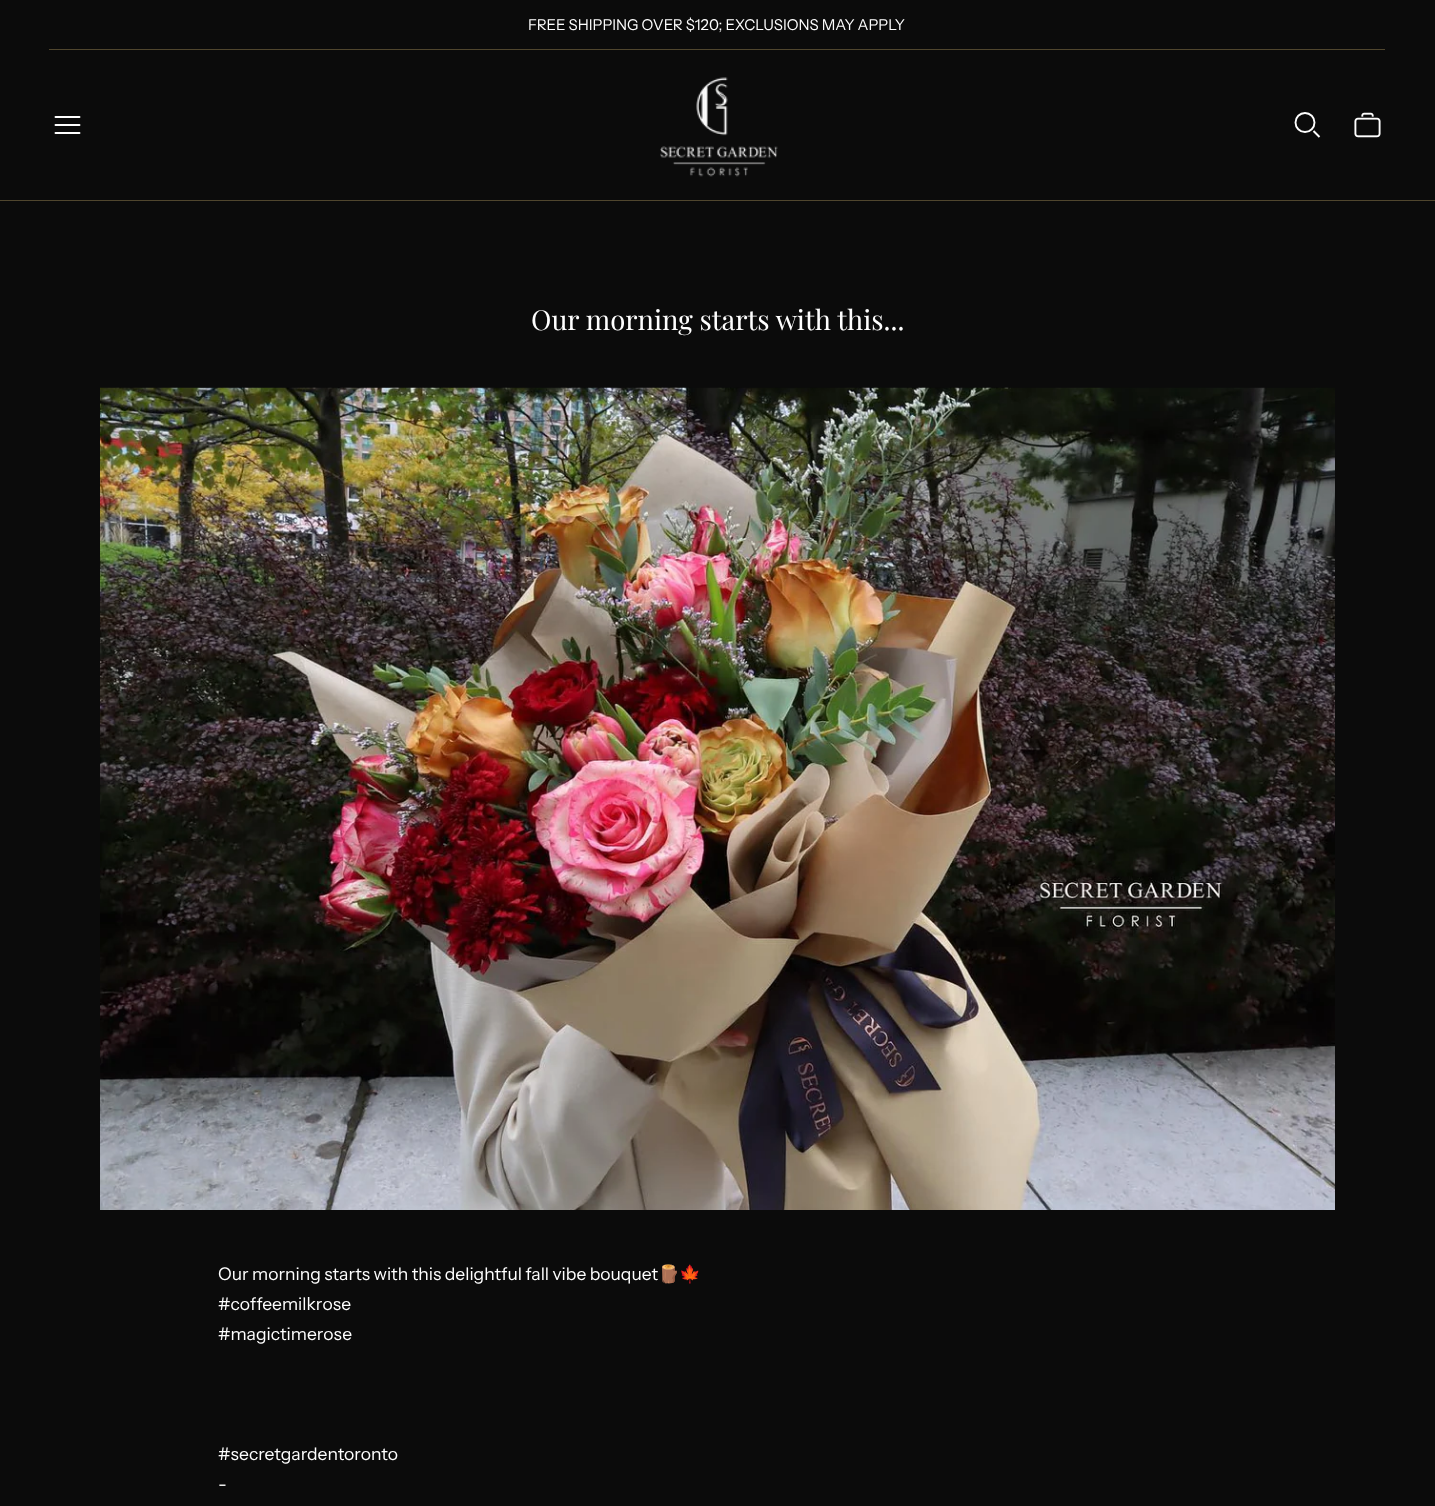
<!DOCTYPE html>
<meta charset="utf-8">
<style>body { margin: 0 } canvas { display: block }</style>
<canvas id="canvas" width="1435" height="1506"></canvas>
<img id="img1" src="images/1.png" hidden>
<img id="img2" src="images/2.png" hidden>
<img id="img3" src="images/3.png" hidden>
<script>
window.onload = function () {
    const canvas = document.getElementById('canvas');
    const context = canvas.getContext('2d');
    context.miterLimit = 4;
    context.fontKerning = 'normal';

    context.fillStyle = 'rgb(11, 11, 11)';
    context.fillRect(0, 0, 1435, 1506);
    context.fillStyle = 'rgb(80, 70, 46)';
    context.fillRect(49, 49, 1336, 1);
    context.fillRect(0, 200, 1435, 1);
    context.beginPath();
    context.moveTo(55.5, 125);
    context.lineTo(79.5, 125);
    context.moveTo(55.5, 117);
    context.lineTo(79.5, 117);
    context.moveTo(55.5, 133);
    context.lineTo(79.5, 133);
    context.strokeStyle = 'rgb(255, 255, 255)';
    context.lineWidth = 1.9;
    context.lineCap = 'round';
    context.lineJoin = 'round';
    context.stroke();
    context.drawImage(document.getElementById('img1'), 660, 77, 118, 100);
    context.beginPath();
    context.arc(1305, 122.5, 9.5, 0, 2 * Math.PI);
    context.stroke();
    context.beginPath();
    context.moveTo(1313.5, 131);
    context.lineTo(1319.5, 137);
    context.lineCap = 'butt';
    context.lineJoin = 'miter';
    context.stroke();
    context.drawImage(document.getElementById('img2'), 1354, 112, 27, 26);
    context.drawImage(document.getElementById('img3'), 100, 387, 1235, 823);
    context.font = '15px Instrument Sans';
    context.fillStyle = 'rgb(255, 255, 255)';
    context.fillText('FREE SHIPPING OVER $120; EXCLUSIONS MAY APPLY', 528, 30);
    context.font = '27.5px Playfair Display';
    context.fillText('Our morning starts with this...', 531, 330);
    context.font = '17.5px Instrument Sans';
    context.fillText('Our morning starts with this delightful fall vibe bouquet', 218, 1280);
    context.font = '17.5px Noto Color Emoji';
    context.fillText('🪵🍁', 658, 1280);
    context.font = '17.5px Instrument Sans';
    context.fillText('#coffeemilkrose', 218, 1310);
    context.fillText('#magictimerose', 218, 1340);
    context.fillText('#secretgardentoronto', 218, 1460);
    context.fillText('-', 218, 1490);
};
</script>
